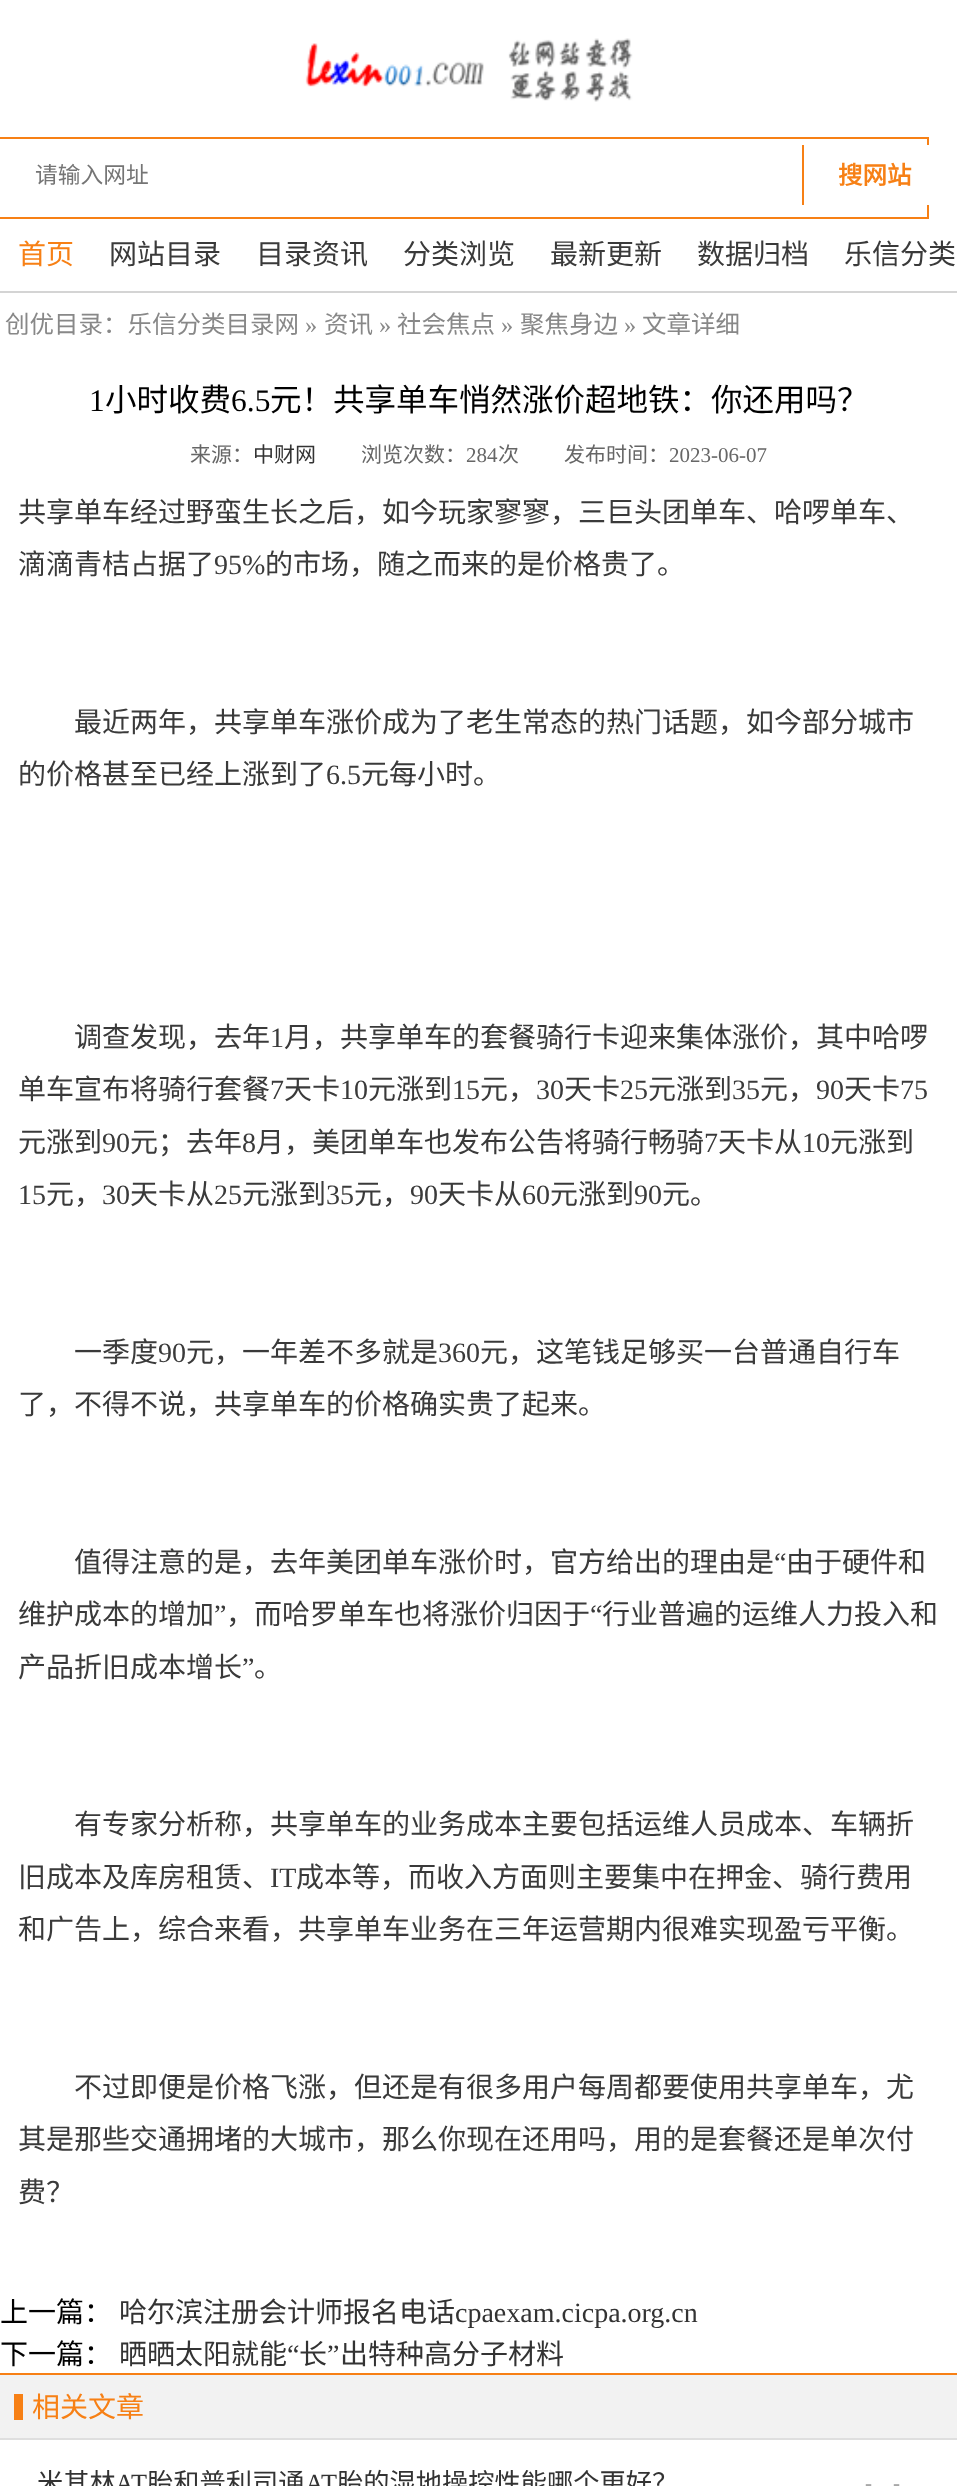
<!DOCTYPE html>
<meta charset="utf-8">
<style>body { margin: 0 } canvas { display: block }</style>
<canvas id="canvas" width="957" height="2486"></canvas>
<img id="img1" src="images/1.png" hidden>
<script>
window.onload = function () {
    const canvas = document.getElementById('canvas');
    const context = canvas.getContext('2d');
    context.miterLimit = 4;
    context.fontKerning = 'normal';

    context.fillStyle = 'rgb(255, 255, 255)';
    context.fillRect(0, 0, 957, 2486);
    context.drawImage(document.getElementById('img1'), 305, 38, 328, 64);
    context.strokeStyle = 'rgb(247, 128, 21)';
    context.lineWidth = 2;
    context.strokeRect(-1, 138, 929, 80);
    context.beginPath();
    context.roundRect(18, 145, 931, 60, [0, 5, 5, 5]);
    context.fill();
    context.fillStyle = 'rgb(247, 128, 21)';
    context.fillRect(802, 145, 2, 60);
    context.fillStyle = 'rgb(212, 212, 212)';
    context.fillRect(0, 291, 957, 2);
    context.fillStyle = 'rgb(242, 242, 242)';
    context.fillRect(0, 2375, 957, 63);
    context.fillStyle = 'rgb(247, 128, 21)';
    context.fillRect(0, 2373, 957, 2);
    context.fillStyle = 'rgb(223, 223, 223)';
    context.fillRect(0, 2438, 957, 2);
    context.fillStyle = 'rgb(247, 128, 21)';
    context.fillRect(14, 2394, 9, 26);
    context.font = '22.75px Noto Sans CJK SC';
    context.fillStyle = 'rgb(117, 117, 117)';
    context.fillText('请输入网址', 35, 183);
    context.font = 'bold 24.5px Noto Sans CJK SC';
    context.fillStyle = 'rgb(247, 128, 21)';
    context.fillText('搜网站', 838, 184);
    context.font = '28px Noto Sans CJK SC';
    context.fillText('首页', 18, 264);
    context.fillStyle = 'rgb(58, 58, 58)';
    context.fillText('网站目录', 109, 264);
    context.fillText('目录资讯', 256, 264);
    context.fillText('分类浏览', 403, 264);
    context.fillText('最新更新', 550, 264);
    context.fillText('数据归档', 697, 264);
    context.fillText('乐信分类', 844, 264);
    context.font = '24.5px Noto Sans CJK SC';
    context.fillStyle = 'rgb(136, 136, 136)';
    context.fillText('创优目录：乐信分类目录网', 5, 333);
    context.font = '24.5px Liberation Serif';
    context.fillText('»', 305, 333);
    context.font = '24.5px Noto Sans CJK SC';
    context.fillText('资讯', 324, 333);
    context.font = '24.5px Liberation Serif';
    context.fillText('»', 379, 333);
    context.font = '24.5px Noto Sans CJK SC';
    context.fillText('社会焦点', 397, 333);
    context.font = '24.5px Liberation Serif';
    context.fillText('»', 501, 333);
    context.font = '24.5px Noto Sans CJK SC';
    context.fillText('聚焦身边', 520, 333);
    context.font = '24.5px Liberation Serif';
    context.fillText('»', 624, 333);
    context.font = '24.5px Noto Sans CJK SC';
    context.fillText('文章详细', 642, 333);
    context.font = '31.5px Liberation Serif';
    context.fillStyle = 'rgb(0, 0, 0)';
    context.fillText('1', 89, 411);
    context.font = '31.5px Noto Sans CJK SC';
    context.fillText('小时收费', 105, 411);
    context.font = '31.5px Liberation Serif';
    context.fillText('6.5', 231, 411);
    context.font = '31.5px Noto Sans CJK SC';
    context.fillText('元！共享单车悄然涨价超地铁：你还用吗？', 270, 411);
    context.font = '21px Noto Sans CJK SC';
    context.fillStyle = 'rgb(102, 102, 102)';
    context.fillText('来源：', 190, 462);
    context.fillStyle = 'rgb(51, 51, 51)';
    context.fillText('中财网', 253, 462);
    context.fillStyle = 'rgb(102, 102, 102)';
    context.fillText('浏览次数：', 361, 462);
    context.font = '21px Liberation Serif';
    context.fillText('284', 466, 462);
    context.font = '21px Noto Sans CJK SC';
    context.fillText('次', 498, 462);
    context.fillText('发布时间：', 564, 462);
    context.font = '21px Liberation Serif';
    context.fillText('2023-06-07', 669, 462);
    context.font = '28px Noto Sans CJK SC';
    context.fillStyle = 'rgb(58, 58, 58)';
    context.fillText('共享单车经过野蛮生长之后，如今玩家寥寥，三巨头团单车、哈啰单车、', 18, 522);
    context.fillText('滴滴青桔占据了', 18, 574);
    context.font = '28px Liberation Serif';
    context.fillText('95%', 214, 574);
    context.font = '28px Noto Sans CJK SC';
    context.fillText('的市场，随之而来的是价格贵了。', 265, 574);
    context.fillText('最近两年，共享单车涨价成为了老生常态的热门话题，如今部分城市', 74, 732);
    context.fillText('的价格甚至已经上涨到了', 18, 784);
    context.font = '28px Liberation Serif';
    context.fillText('6.5', 326, 784);
    context.font = '28px Noto Sans CJK SC';
    context.fillText('元每小时。', 361, 784);
    context.fillText('调查发现，去年', 74, 1047);
    context.font = '28px Liberation Serif';
    context.fillText('1', 270, 1047);
    context.font = '28px Noto Sans CJK SC';
    context.fillText('月，共享单车的套餐骑行卡迎来集体涨价，其中哈啰', 284, 1047);
    context.fillText('单车宣布将骑行套餐', 18, 1099);
    context.font = '28px Liberation Serif';
    context.fillText('7', 270, 1099);
    context.font = '28px Noto Sans CJK SC';
    context.fillText('天卡', 284, 1099);
    context.font = '28px Liberation Serif';
    context.fillText('10', 340, 1099);
    context.font = '28px Noto Sans CJK SC';
    context.fillText('元涨到', 368, 1099);
    context.font = '28px Liberation Serif';
    context.fillText('15', 452, 1099);
    context.font = '28px Noto Sans CJK SC';
    context.fillText('元，', 480, 1099);
    context.font = '28px Liberation Serif';
    context.fillText('30', 536, 1099);
    context.font = '28px Noto Sans CJK SC';
    context.fillText('天卡', 564, 1099);
    context.font = '28px Liberation Serif';
    context.fillText('25', 620, 1099);
    context.font = '28px Noto Sans CJK SC';
    context.fillText('元涨到', 648, 1099);
    context.font = '28px Liberation Serif';
    context.fillText('35', 732, 1099);
    context.font = '28px Noto Sans CJK SC';
    context.fillText('元，', 760, 1099);
    context.font = '28px Liberation Serif';
    context.fillText('90', 816, 1099);
    context.font = '28px Noto Sans CJK SC';
    context.fillText('天卡', 844, 1099);
    context.font = '28px Liberation Serif';
    context.fillText('75', 900, 1099);
    context.font = '28px Noto Sans CJK SC';
    context.fillText('元涨到', 18, 1152);
    context.font = '28px Liberation Serif';
    context.fillText('90', 102, 1152);
    context.font = '28px Noto Sans CJK SC';
    context.fillText('元；去年', 130, 1152);
    context.font = '28px Liberation Serif';
    context.fillText('8', 242, 1152);
    context.font = '28px Noto Sans CJK SC';
    context.fillText('月，美团单车也发布公告将骑行畅骑', 256, 1152);
    context.font = '28px Liberation Serif';
    context.fillText('7', 704, 1152);
    context.font = '28px Noto Sans CJK SC';
    context.fillText('天卡从', 718, 1152);
    context.font = '28px Liberation Serif';
    context.fillText('10', 802, 1152);
    context.font = '28px Noto Sans CJK SC';
    context.fillText('元涨到', 830, 1152);
    context.font = '28px Liberation Serif';
    context.fillText('15', 18, 1204);
    context.font = '28px Noto Sans CJK SC';
    context.fillText('元，', 46, 1204);
    context.font = '28px Liberation Serif';
    context.fillText('30', 102, 1204);
    context.font = '28px Noto Sans CJK SC';
    context.fillText('天卡从', 130, 1204);
    context.font = '28px Liberation Serif';
    context.fillText('25', 214, 1204);
    context.font = '28px Noto Sans CJK SC';
    context.fillText('元涨到', 242, 1204);
    context.font = '28px Liberation Serif';
    context.fillText('35', 326, 1204);
    context.font = '28px Noto Sans CJK SC';
    context.fillText('元，', 354, 1204);
    context.font = '28px Liberation Serif';
    context.fillText('90', 410, 1204);
    context.font = '28px Noto Sans CJK SC';
    context.fillText('天卡从', 438, 1204);
    context.font = '28px Liberation Serif';
    context.fillText('60', 522, 1204);
    context.font = '28px Noto Sans CJK SC';
    context.fillText('元涨到', 550, 1204);
    context.font = '28px Liberation Serif';
    context.fillText('90', 634, 1204);
    context.font = '28px Noto Sans CJK SC';
    context.fillText('元。', 662, 1204);
    context.fillText('一季度', 74, 1362);
    context.font = '28px Liberation Serif';
    context.fillText('90', 158, 1362);
    context.font = '28px Noto Sans CJK SC';
    context.fillText('元，一年差不多就是', 186, 1362);
    context.font = '28px Liberation Serif';
    context.fillText('360', 438, 1362);
    context.font = '28px Noto Sans CJK SC';
    context.fillText('元，这笔钱足够买一台普通自行车', 480, 1362);
    context.fillText('了，不得不说，共享单车的价格确实贵了起来。', 18, 1414);
    context.fillText('值得注意的是，去年美团单车涨价时，官方给出的理由是', 74, 1572);
    context.font = '28px Liberation Serif';
    context.fillText('“', 774, 1572);
    context.font = '28px Noto Sans CJK SC';
    context.fillText('由于硬件和', 786, 1572);
    context.fillText('维护成本的增加', 18, 1624);
    context.font = '28px Liberation Serif';
    context.fillText('”', 214, 1624);
    context.font = '28px Noto Sans CJK SC';
    context.fillText('，而哈罗单车也将涨价归因于', 226, 1624);
    context.font = '28px Liberation Serif';
    context.fillText('“', 590, 1624);
    context.font = '28px Noto Sans CJK SC';
    context.fillText('行业普遍的运维人力投入和', 602, 1624);
    context.fillText('产品折旧成本增长', 18, 1677);
    context.font = '28px Liberation Serif';
    context.fillText('”', 242, 1677);
    context.font = '28px Noto Sans CJK SC';
    context.fillText('。', 254, 1677);
    context.fillText('有专家分析称，共享单车的业务成本主要包括运维人员成本、车辆折', 74, 1834);
    context.fillText('旧成本及库房租赁、', 18, 1887);
    context.font = '28px Liberation Serif';
    context.fillText('IT', 270, 1887);
    context.font = '28px Noto Sans CJK SC';
    context.fillText('成本等，而收入方面则主要集中在押金、骑行费用', 296, 1887);
    context.fillText('和广告上，综合来看，共享单车业务在三年运营期内很难实现盈亏平衡。', 18, 1939);
    context.fillText('不过即便是价格飞涨，但还是有很多用户每周都要使用共享单车，尤', 74, 2097);
    context.fillText('其是那些交通拥堵的大城市，那么你现在还用吗，用的是套餐还是单次付', 18, 2149);
    context.fillText('费？', 18, 2202);
    context.fillStyle = 'rgb(0, 0, 0)';
    context.fillText('上一篇：', 0, 2322);
    context.fillStyle = 'rgb(51, 51, 51)';
    context.fillText('哈尔滨注册会计师报名电话', 119, 2322);
    context.font = '28px Liberation Serif';
    context.fillText('cpaexam.cicpa.org.cn', 455, 2322);
    context.font = '28px Noto Sans CJK SC';
    context.fillStyle = 'rgb(0, 0, 0)';
    context.fillText('下一篇：', 0, 2364);
    context.fillStyle = 'rgb(51, 51, 51)';
    context.fillText('晒晒太阳就能', 119, 2364);
    context.font = '28px Liberation Serif';
    context.fillText('“', 287, 2364);
    context.font = '28px Noto Sans CJK SC';
    context.fillText('长', 299, 2364);
    context.font = '28px Liberation Serif';
    context.fillText('”', 327, 2364);
    context.font = '28px Noto Sans CJK SC';
    context.fillText('出特种高分子材料', 340, 2364);
    context.fillStyle = 'rgb(247, 128, 21)';
    context.fillText('相关文章', 32, 2417);
    context.font = '26.25px Noto Sans CJK SC';
    context.fillStyle = 'rgb(51, 51, 51)';
    context.fillText('米其林', 37, 2492);
    context.font = '26.25px Liberation Serif';
    context.fillText('AT', 115, 2492);
    context.font = '26.25px Noto Sans CJK SC';
    context.fillText('胎和普利司通', 147, 2492);
    context.font = '26.25px Liberation Serif';
    context.fillText('AT', 305, 2492);
    context.font = '26.25px Noto Sans CJK SC';
    context.fillText('胎的湿地操控性能哪个更好？', 337, 2492);
    context.font = '21px Liberation Serif';
    context.fillStyle = 'rgb(153, 153, 153)';
    context.fillText('-', 865, 2490);
    context.fillText('-', 893, 2490);
};
</script>
